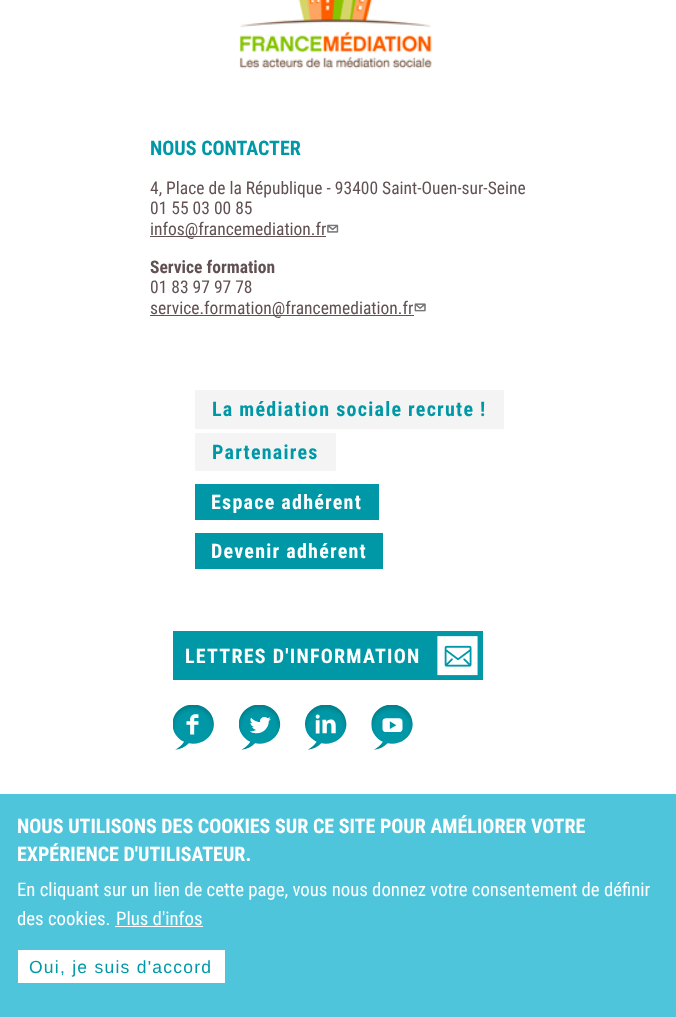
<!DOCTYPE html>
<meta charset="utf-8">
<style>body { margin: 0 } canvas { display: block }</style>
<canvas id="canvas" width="676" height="1017"></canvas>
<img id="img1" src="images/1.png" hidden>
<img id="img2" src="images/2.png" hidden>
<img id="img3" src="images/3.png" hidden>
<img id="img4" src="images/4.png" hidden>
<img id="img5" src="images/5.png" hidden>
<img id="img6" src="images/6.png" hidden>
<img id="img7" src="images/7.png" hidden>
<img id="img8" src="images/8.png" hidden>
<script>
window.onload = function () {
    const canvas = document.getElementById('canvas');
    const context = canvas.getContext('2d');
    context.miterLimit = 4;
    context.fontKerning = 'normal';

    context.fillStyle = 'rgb(255, 255, 255)';
    context.fillRect(0, 0, 676, 1017);
    context.drawImage(document.getElementById('img1'), 239, 0, 193, 69);
    context.fillStyle = 'rgb(97, 81, 82)';
    context.fillRect(150, 236, 176, 1);
    context.drawImage(document.getElementById('img2'), 327, 224, 12, 9);
    context.fillRect(150, 315, 264, 1);
    context.drawImage(document.getElementById('img3'), 414, 303, 12, 9);
    context.fillStyle = 'rgb(244, 244, 244)';
    context.fillRect(195, 390, 309, 39);
    context.fillRect(195, 433, 141, 38);
    context.fillStyle = 'rgb(0, 152, 167)';
    context.fillRect(195, 484, 184, 36);
    context.fillRect(195, 533, 188, 36);
    context.fillRect(173, 631, 310, 49);
    context.drawImage(document.getElementById('img4'), 437, 636, 41, 40);
    context.drawImage(document.getElementById('img5'), 173, 705, 41, 45);
    context.drawImage(document.getElementById('img6'), 239, 705, 42, 45);
    context.drawImage(document.getElementById('img7'), 305, 705, 42, 45);
    context.drawImage(document.getElementById('img8'), 371, 705, 42, 45);
    context.fillStyle = 'rgb(79, 197, 219)';
    context.fillRect(0, 794, 676, 223);
    context.fillStyle = 'rgb(255, 255, 255)';
    context.fillRect(115, 926, 88, 1);
    context.fillRect(18, 950, 207, 33);
    context.font = 'bold 20px Roboto Condensed';
    context.fillStyle = 'rgb(0, 152, 167)';
    context.fillText('NOUS CONTACTER', 150, 155);
    context.font = '17.5px Roboto Condensed';
    context.fillStyle = 'rgb(97, 81, 82)';
    context.fillText('4, Place de la République - 93400 Saint-Ouen-sur-Seine', 150, 194);
    context.fillText('01 55 03 00 85', 150, 214);
    context.fillText('infos@francemediation.fr', 150, 235);
    context.font = 'bold 17.5px Roboto Condensed';
    context.fillText('Service formation', 150, 273);
    context.font = '17.5px Roboto Condensed';
    context.fillText('01 83 97 97 78', 150, 293);
    context.fillText('service.formation@francemediation.fr', 150, 314);
    context.letterSpacing = '1.25px';
    context.font = 'bold 20px Roboto Condensed';
    context.fillStyle = 'rgb(0, 152, 167)';
    context.fillText('La médiation sociale recrute !', 212, 416);
    context.fillText('Partenaires', 212, 459);
    context.fillStyle = 'rgb(255, 255, 255)';
    context.fillText('Espace adhérent', 211, 509);
    context.fillText('Devenir adhérent', 211, 558);
    context.fillText('LETTRES D\'INFORMATION', 185, 663);
    context.letterSpacing = '0px';
    context.fillText('NOUS UTILISONS DES COOKIES SUR CE SITE POUR AMÉLIORER VOTRE', 17, 833);
    context.fillText('EXPÉRIENCE D\'UTILISATEUR.', 17, 861);
    context.font = '18.75px Roboto Condensed';
    context.fillText('En cliquant sur un lien de cette page, vous nous donnez votre consentement de définir', 17, 896);
    context.fillText('des cookies.', 17, 925);
    context.fillText('Plus d\'infos', 116, 925);
    context.letterSpacing = '1.25px';
    context.font = '17.5px Liberation Sans';
    context.fillStyle = 'rgb(0, 152, 167)';
    context.fillText('Oui, je suis d\'accord', 29, 973);
};
</script>
